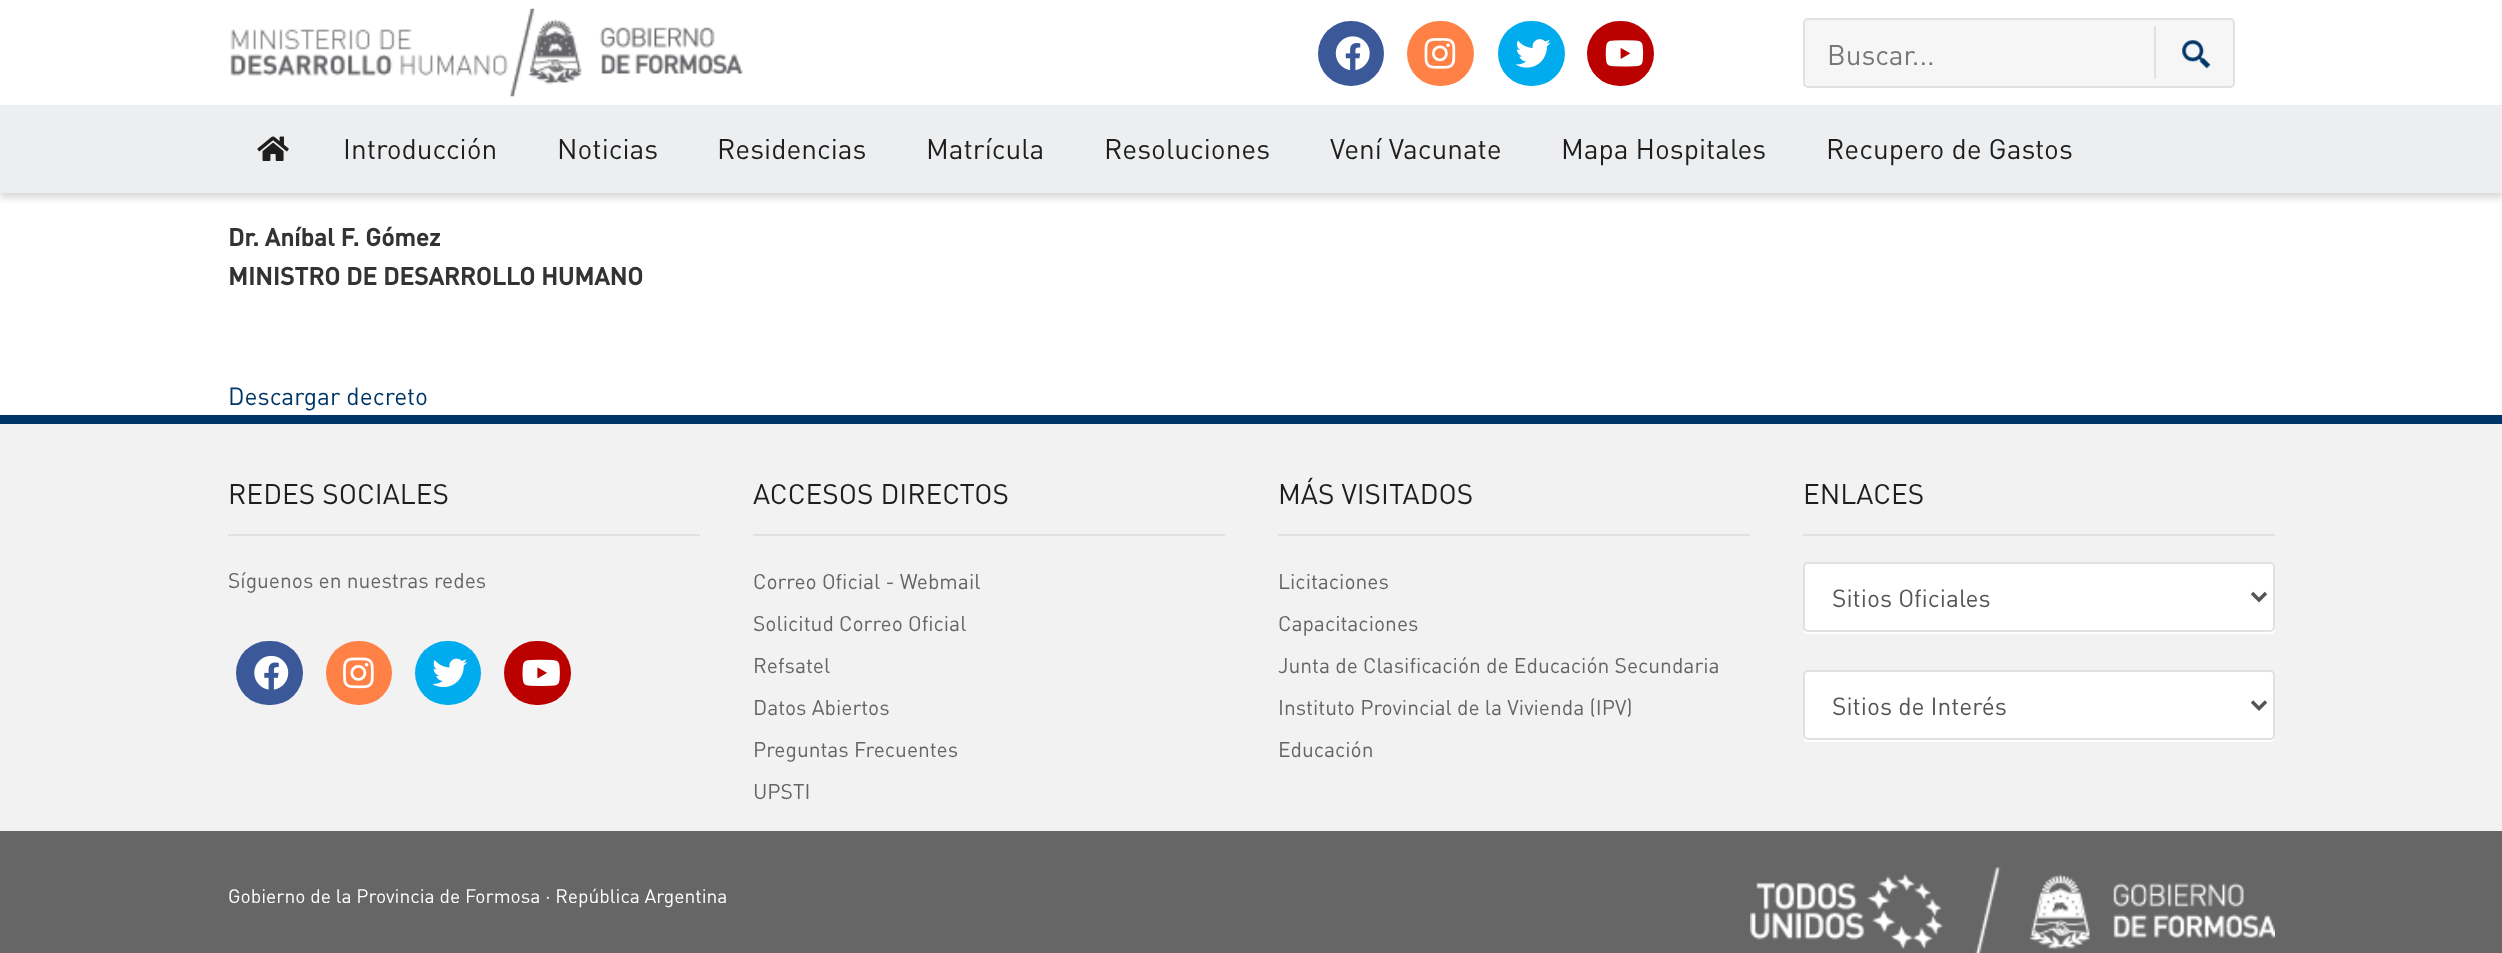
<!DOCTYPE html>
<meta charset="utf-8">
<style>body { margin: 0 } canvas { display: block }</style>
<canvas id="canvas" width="2502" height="953"></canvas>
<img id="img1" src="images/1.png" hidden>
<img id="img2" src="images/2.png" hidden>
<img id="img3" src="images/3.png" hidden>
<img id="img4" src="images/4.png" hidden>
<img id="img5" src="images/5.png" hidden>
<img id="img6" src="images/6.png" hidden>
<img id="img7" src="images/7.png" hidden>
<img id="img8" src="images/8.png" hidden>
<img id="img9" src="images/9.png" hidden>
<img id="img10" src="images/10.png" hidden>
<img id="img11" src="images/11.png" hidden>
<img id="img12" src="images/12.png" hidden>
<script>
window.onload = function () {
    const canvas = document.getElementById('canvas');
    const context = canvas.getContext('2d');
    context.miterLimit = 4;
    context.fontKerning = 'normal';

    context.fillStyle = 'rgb(255, 255, 255)';
    context.fillRect(0, 0, 2502, 953);
    context.drawImage(document.getElementById('img1'), 230, 8, 513, 89);
    context.fillStyle = 'rgb(59, 89, 152)';
    context.beginPath();
    context.roundRect(1318, 21, 66, 65, 32.5);
    context.fill();
    context.drawImage(document.getElementById('img2'), 1335, 36, 35, 35);
    context.fillStyle = 'rgb(255, 129, 70)';
    context.beginPath();
    context.roundRect(1407, 21, 67, 65, 32.5);
    context.fill();
    context.drawImage(document.getElementById('img3'), 1424, 38, 32, 31);
    context.fillStyle = 'rgb(0, 172, 237)';
    context.beginPath();
    context.roundRect(1498, 21, 67, 65, 32.5);
    context.fill();
    context.drawImage(document.getElementById('img4'), 1515, 39, 36, 29);
    context.fillStyle = 'rgb(187, 0, 0)';
    context.beginPath();
    context.roundRect(1587, 21, 67, 65, 32.5);
    context.fill();
    context.drawImage(document.getElementById('img5'), 1605, 40, 39, 27);
    context.fillStyle = 'rgb(246, 246, 246)';
    context.beginPath();
    context.roundRect(1804, 19, 430, 68, 4);
    context.fill();
    context.strokeStyle = 'rgb(225, 225, 225)';
    context.lineWidth = 2;
    context.stroke();
    context.fillStyle = 'rgb(225, 225, 225)';
    context.fillRect(2154, 26, 2, 53);
    context.drawImage(document.getElementById('img6'), 2182, 40, 29, 29);
    context.fillStyle = 'rgba(0, 0, 0, 0.15)';
    context.filter = 'blur(3.5px)';
    context.beginPath();
    context.rect(0, 110, 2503, 88);
    context.fill();
    context.filter = 'none';
    context.fillStyle = 'rgb(237, 238, 240)';
    context.fillRect(0, 105, 2502, 88);
    context.drawImage(document.getElementById('img7'), 257, 136, 32, 25);
    context.fillStyle = 'rgb(0, 54, 103)';
    context.fillRect(0, 415, 2502, 9);
    context.fillStyle = 'rgb(242, 242, 242)';
    context.fillRect(0, 424, 2502, 407);
    context.fillStyle = 'rgb(225, 225, 225)';
    context.fillRect(228, 534, 472, 2);
    context.fillStyle = 'rgb(59, 89, 152)';
    context.beginPath();
    context.roundRect(236, 641, 67, 64, 32);
    context.fill();
    context.drawImage(document.getElementById('img8'), 254, 655, 35, 35);
    context.fillStyle = 'rgb(255, 129, 70)';
    context.beginPath();
    context.roundRect(326, 641, 66, 64, 32);
    context.fill();
    context.drawImage(document.getElementById('img9'), 343, 657, 31, 32);
    context.fillStyle = 'rgb(0, 172, 237)';
    context.beginPath();
    context.roundRect(415, 641, 66, 64, 32);
    context.fill();
    context.drawImage(document.getElementById('img10'), 432, 658, 36, 30);
    context.fillStyle = 'rgb(187, 0, 0)';
    context.beginPath();
    context.roundRect(504, 641, 67, 64, 32);
    context.fill();
    context.drawImage(document.getElementById('img11'), 522, 659, 38, 27);
    context.fillStyle = 'rgb(225, 225, 225)';
    context.fillRect(753, 534, 472, 2);
    context.fillRect(1278, 534, 472, 2);
    context.fillRect(1803, 534, 472, 2);
    context.fillStyle = 'rgb(255, 255, 255)';
    context.beginPath();
    context.moveTo(1803, 629);
    context.bezierCurveTo(1803, 632, 1805, 634, 1808, 634);
    context.lineTo(2270, 634);
    context.bezierCurveTo(2273, 634, 2275, 632, 2275, 629);
    context.lineTo(2275, 626);
    context.bezierCurveTo(2275, 629, 2273, 632, 2270, 632);
    context.lineTo(1808, 632);
    context.bezierCurveTo(1806, 632, 1804, 631, 1803, 629);
    context.closePath();
    context.fill();
    context.beginPath();
    context.roundRect(1804, 563, 470, 68, 4);
    context.fill();
    context.stroke();
    context.beginPath();
    context.moveTo(2252, 593);
    context.lineTo(2259, 600);
    context.lineTo(2266, 593);
    context.strokeStyle = 'rgb(85, 85, 85)';
    context.lineWidth = 3.5;
    context.stroke();
    context.beginPath();
    context.moveTo(1803, 737);
    context.bezierCurveTo(1803, 740, 1805, 742, 1808, 742);
    context.lineTo(2270, 742);
    context.bezierCurveTo(2274, 742, 2275, 738, 2275, 735);
    context.bezierCurveTo(2275, 738, 2273, 740, 2270, 740);
    context.lineTo(1808, 740);
    context.bezierCurveTo(1806, 740, 1804, 739, 1803, 737);
    context.closePath();
    context.fill();
    context.beginPath();
    context.roundRect(1804, 671, 470, 68, 4);
    context.fill();
    context.strokeStyle = 'rgb(225, 225, 225)';
    context.lineWidth = 2;
    context.stroke();
    context.beginPath();
    context.moveTo(2252, 701.5);
    context.lineTo(2259, 708.5);
    context.lineTo(2266, 701.5);
    context.strokeStyle = 'rgb(85, 85, 85)';
    context.lineWidth = 3.5;
    context.stroke();
    context.fillStyle = 'rgb(102, 102, 102)';
    context.fillRect(0, 831, 2502, 122);
    context.drawImage(document.getElementById('img12'), 1750, 867, 525, 86);
    context.font = '28px DIN';
    context.fillStyle = 'rgb(119, 119, 119)';
    context.fillText('Buscar...', 1827, 65);
    context.fillStyle = 'rgb(30, 30, 30)';
    context.fillText('Introducción', 343, 159);
    context.fillText('Noticias', 557, 159);
    context.fillText('Residencias', 717, 159);
    context.fillText('Matrícula', 926, 159);
    context.fillText('Resoluciones', 1104, 159);
    context.fillText('Vení Vacunate', 1330, 159);
    context.fillText('Mapa Hospitales', 1561, 159);
    context.fillText('Recupero de Gastos', 1826, 159);
    context.font = 'bold 24.5px DIN';
    context.fillStyle = 'rgb(51, 51, 51)';
    context.fillText('Dr. Aníbal F. Gómez', 228, 246);
    context.fillText('MINISTRO DE DESARROLLO HUMANO', 228, 285);
    context.font = '24.5px DIN';
    context.fillStyle = 'rgb(0, 54, 103)';
    context.fillText('Descargar decreto', 228, 405);
    context.font = '28px DIN';
    context.fillStyle = 'rgb(30, 30, 30)';
    context.fillText('REDES SOCIALES', 228, 504);
    context.font = '21px DIN';
    context.fillStyle = 'rgb(101, 101, 104)';
    context.fillText('Síguenos en nuestras redes', 228, 588);
    context.font = '28px DIN';
    context.fillStyle = 'rgb(30, 30, 30)';
    context.fillText('ACCESOS DIRECTOS', 753, 504);
    context.font = '21px DIN';
    context.fillStyle = 'rgb(101, 101, 104)';
    context.fillText('Correo Oficial - Webmail', 753, 589);
    context.fillText('Solicitud Correo Oficial', 753, 631);
    context.fillText('Refsatel', 753, 673);
    context.fillText('Datos Abiertos', 753, 715);
    context.fillText('Preguntas Frecuentes', 753, 757);
    context.fillText('UPSTI', 753, 799);
    context.font = '28px DIN';
    context.fillStyle = 'rgb(30, 30, 30)';
    context.fillText('MÁS VISITADOS', 1278, 504);
    context.font = '21px DIN';
    context.fillStyle = 'rgb(101, 101, 104)';
    context.fillText('Licitaciones', 1278, 589);
    context.fillText('Capacitaciones', 1278, 631);
    context.fillText('Junta de Clasificación de Educación Secundaria', 1278, 673);
    context.fillText('Instituto Provincial de la Vivienda (IPV)', 1278, 715);
    context.fillText('Educación', 1278, 757);
    context.font = '28px DIN';
    context.fillStyle = 'rgb(30, 30, 30)';
    context.fillText('ENLACES', 1803, 504);
    context.font = '24.5px DIN';
    context.fillStyle = 'rgb(85, 85, 85)';
    context.fillText('Sitios Oficiales', 1832, 607);
    context.fillText('Sitios de Interés', 1832, 715);
    context.font = '19.25px DIN';
    context.fillStyle = 'rgb(255, 255, 255)';
    context.fillText('Gobierno de la Provincia de Formosa · República Argentina', 228, 903);
};
</script>
